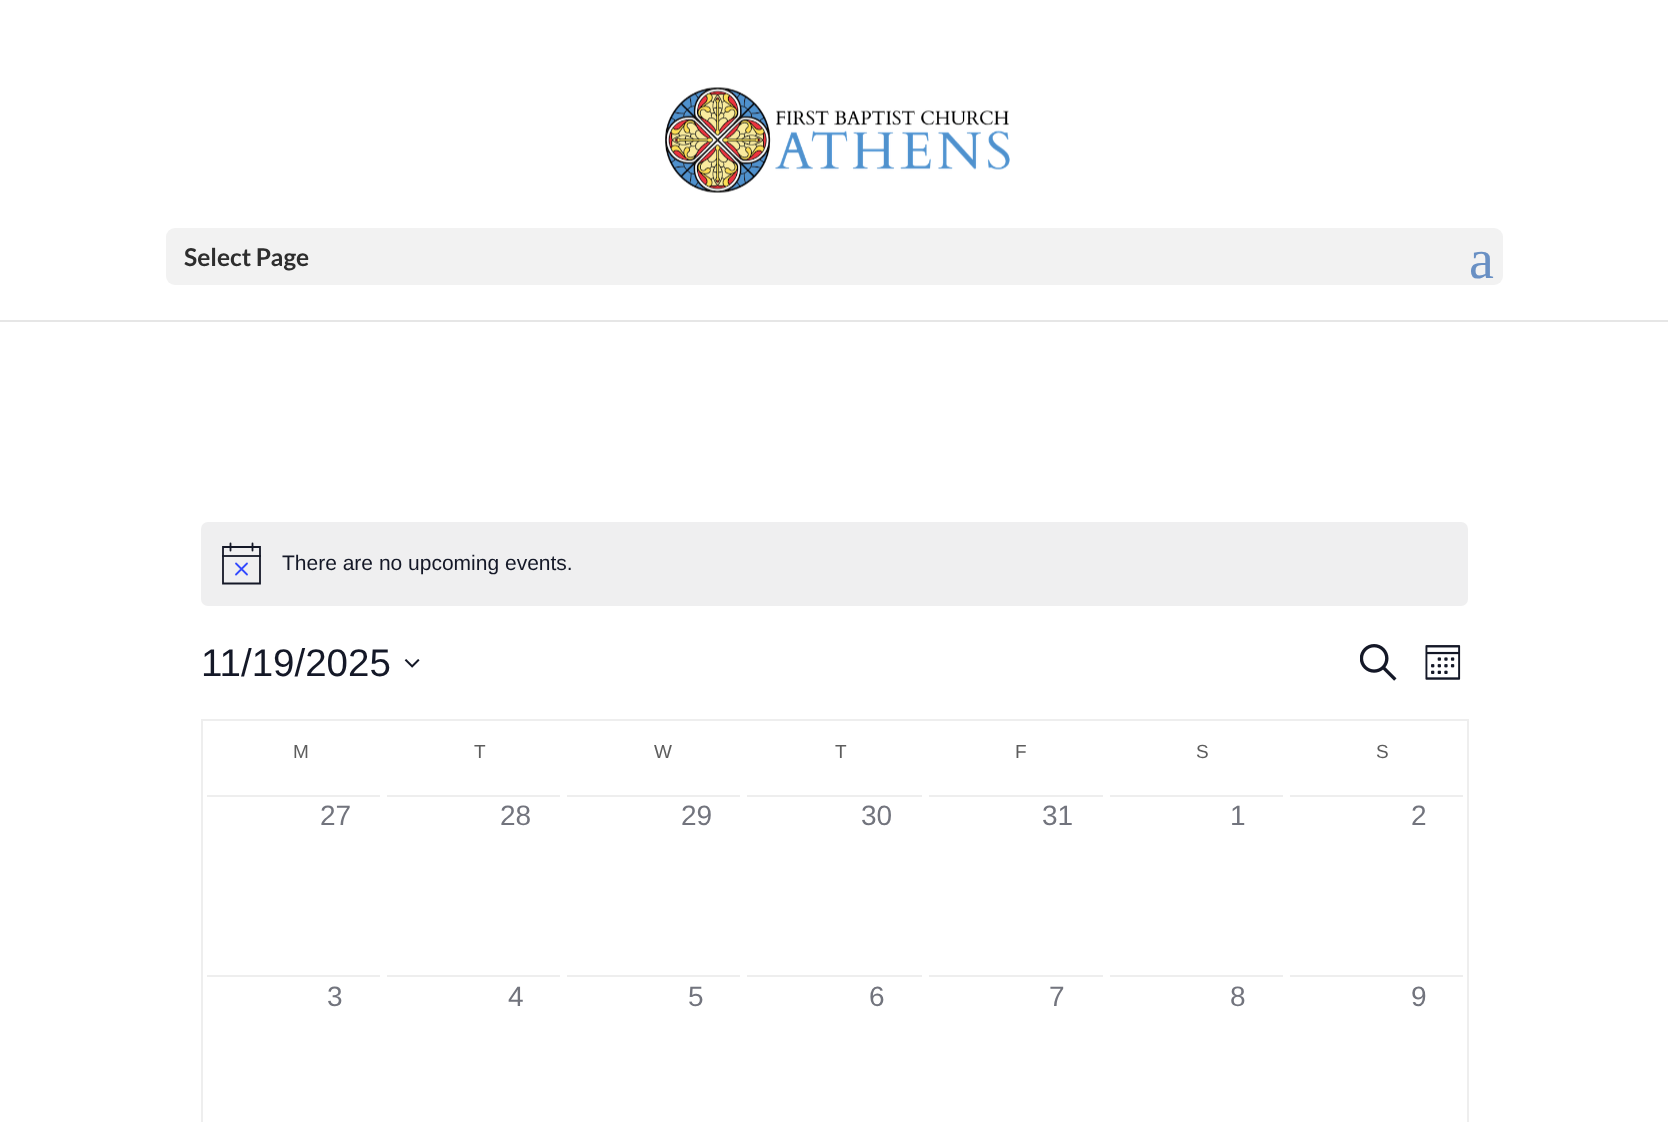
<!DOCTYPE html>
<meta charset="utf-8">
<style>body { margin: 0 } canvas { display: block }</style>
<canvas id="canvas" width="1668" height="1122"></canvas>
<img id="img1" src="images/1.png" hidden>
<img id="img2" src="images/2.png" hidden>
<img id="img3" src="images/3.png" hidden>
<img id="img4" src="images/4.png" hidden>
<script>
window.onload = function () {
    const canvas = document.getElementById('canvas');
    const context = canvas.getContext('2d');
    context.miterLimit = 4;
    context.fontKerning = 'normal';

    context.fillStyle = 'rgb(255, 255, 255)';
    context.fillRect(0, 0, 1668, 1122);
    context.fillStyle = 'rgb(230, 230, 230)';
    context.beginPath();
    context.moveTo(0, 320);
    context.lineTo(0, 322);
    context.lineTo(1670, 322);
    context.lineTo(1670, 54);
    context.lineTo(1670, 320);
    context.closePath();
    context.fill();
    context.drawImage(document.getElementById('img1'), 665, 87, 345, 106);
    context.fillStyle = 'rgb(242, 242, 242)';
    context.beginPath();
    context.roundRect(166, 228, 1337, 57, 9);
    context.fill();
    context.fillStyle = 'rgb(239, 239, 240)';
    context.beginPath();
    context.roundRect(201, 522, 1267, 84, 7);
    context.fill();
    context.beginPath();
    context.moveTo(223, 547);
    context.lineTo(260, 547);
    context.lineTo(260, 583.5);
    context.lineTo(223, 583.5);
    context.closePath();
    context.strokeStyle = 'rgb(20, 24, 39)';
    context.lineWidth = 1.8;
    context.stroke();
    context.beginPath();
    context.moveTo(236, 563.5);
    context.lineTo(247, 574.5);
    context.moveTo(247, 563.5);
    context.lineTo(236, 574.5);
    context.strokeStyle = 'rgb(51, 74, 255)';
    context.lineCap = 'round';
    context.stroke();
    context.beginPath();
    context.moveTo(230.5, 543.5);
    context.lineTo(230.5, 550.5);
    context.moveTo(252.5, 543.5);
    context.lineTo(252.5, 550.5);
    context.strokeStyle = 'rgb(20, 24, 39)';
    context.stroke();
    context.fillStyle = 'rgba(20, 24, 39, 0.9)';
    context.fillRect(222, 555, 39, 2);
    context.drawImage(document.getElementById('img2'), 404, 659, 16, 9);
    context.drawImage(document.getElementById('img3'), 1360, 644, 37, 37);
    context.drawImage(document.getElementById('img4'), 1425, 645, 36, 35);
    context.fillStyle = 'rgb(238, 238, 238)';
    context.fillRect(201, 719, 1267, 2);
    context.fillRect(1467, 719, 2, 403);
    context.fillRect(201, 719, 2, 403);
    context.fillRect(207, 795, 173, 2);
    context.fillRect(387, 795, 173, 2);
    context.fillRect(567, 795, 173, 2);
    context.fillRect(747, 795, 175, 2);
    context.fillRect(929, 795, 174, 2);
    context.fillRect(1110, 795, 173, 2);
    context.fillRect(1290, 795, 173, 2);
    context.fillRect(207, 975, 173, 2);
    context.fillRect(387, 975, 173, 2);
    context.fillRect(567, 975, 173, 2);
    context.fillRect(747, 975, 175, 2);
    context.fillRect(929, 975, 174, 2);
    context.fillRect(1110, 975, 173, 2);
    context.fillRect(1290, 975, 173, 2);
    context.font = 'bold 24.5px Lato';
    context.fillStyle = 'rgb(46, 46, 46)';
    context.fillText('Select Page', 184, 266);
    context.font = '56px Liberation Serif';
    context.fillStyle = 'rgb(105, 144, 196)';
    context.fillText('a', 1469, 278);
    context.font = '21px Liberation Sans';
    context.fillStyle = 'rgb(20, 24, 39)';
    context.fillText('There are no upcoming events.', 282, 570);
    context.font = '38.5px Liberation Sans';
    context.fillText('11/19/2025', 201, 676);
    context.font = '19px Liberation Sans';
    context.fillStyle = 'rgb(93, 93, 93)';
    context.fillText('M', 293, 758);
    context.fillText('T', 474, 758);
    context.fillText('W', 654, 758);
    context.fillText('T', 835, 758);
    context.fillText('F', 1015, 758);
    context.fillText('S', 1196, 758);
    context.fillText('S', 1376, 758);
    context.font = '28px Liberation Sans';
    context.fillStyle = 'rgb(114, 116, 125)';
    context.fillText('27', 320, 825);
    context.fillText('28', 500, 825);
    context.fillText('29', 681, 825);
    context.fillText('30', 861, 825);
    context.fillText('31', 1042, 825);
    context.fillText('1', 1230, 825);
    context.fillText('2', 1411, 825);
    context.fillText('3', 327, 1006);
    context.fillText('4', 508, 1006);
    context.fillText('5', 688, 1006);
    context.fillText('6', 869, 1006);
    context.fillText('7', 1049, 1006);
    context.fillText('8', 1230, 1006);
    context.fillText('9', 1411, 1006);
};
</script>
